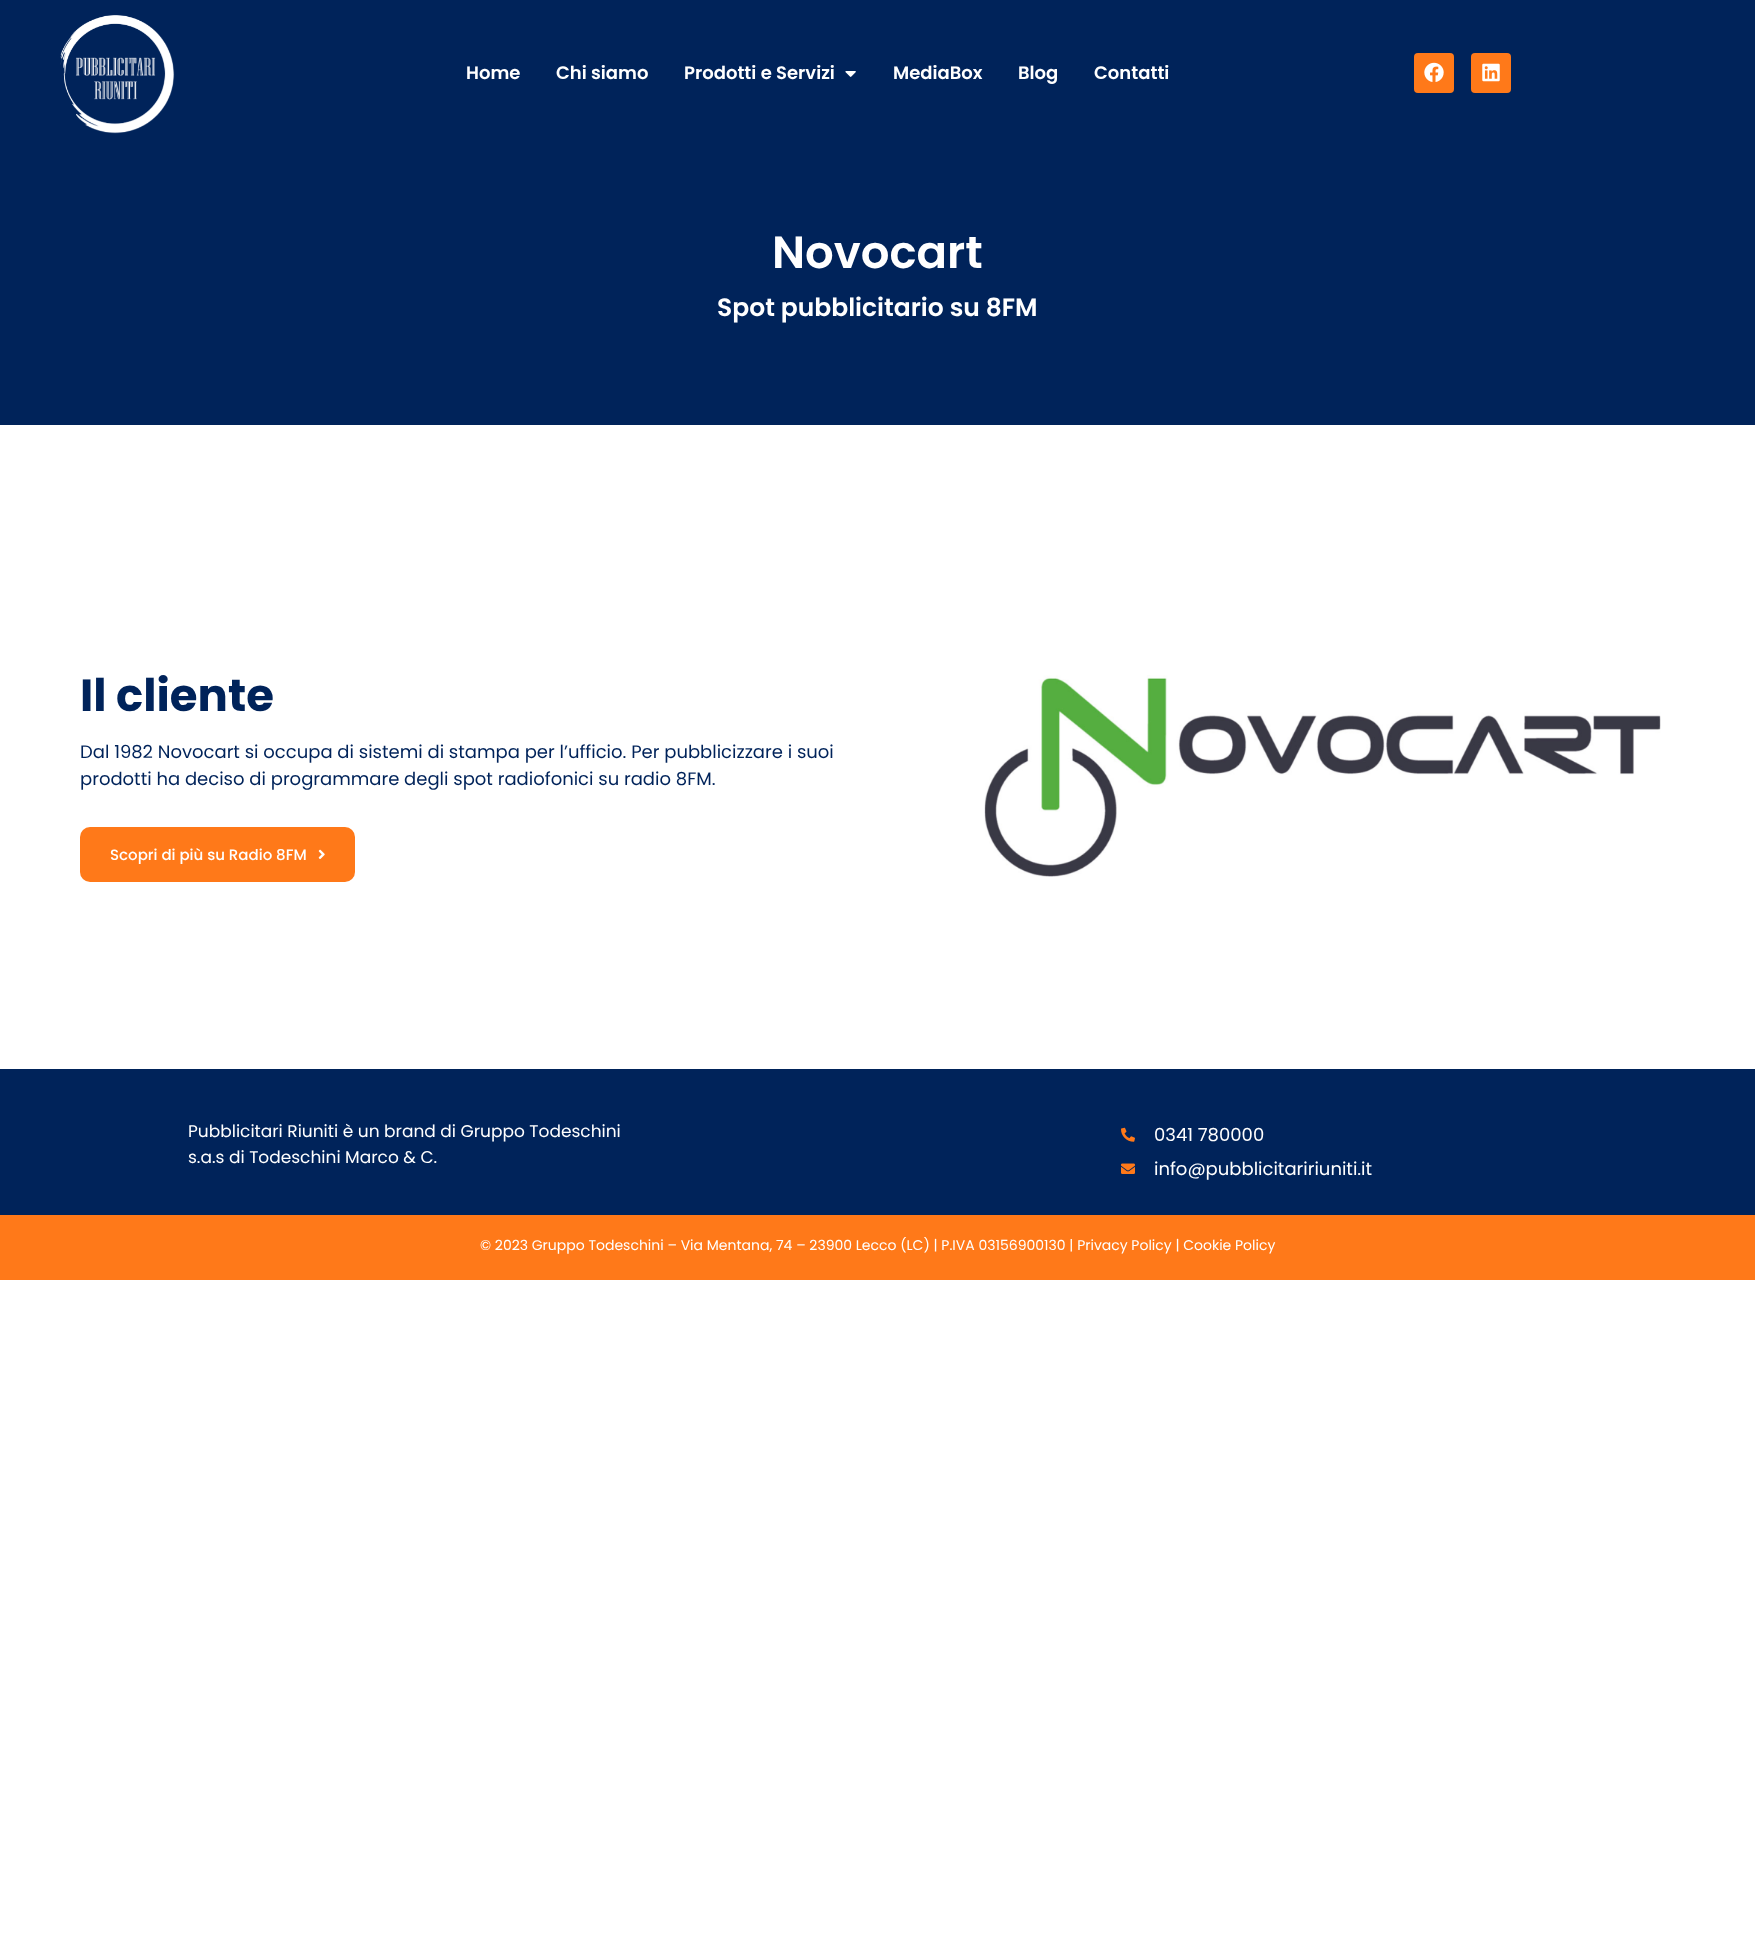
<!DOCTYPE html>
<meta charset="utf-8">
<style>body { margin: 0 } canvas { display: block }</style>
<canvas id="canvas" width="1755" height="1933"></canvas>
<img id="img1" src="images/1.png" hidden>
<img id="img2" src="images/2.png" hidden>
<img id="img3" src="images/3.png" hidden>
<img id="img4" src="images/4.png" hidden>
<img id="img5" src="images/5.png" hidden>
<img id="img6" src="images/6.png" hidden>
<img id="img7" src="images/7.png" hidden>
<img id="img8" src="images/8.png" hidden>
<script>
window.onload = function () {
    const canvas = document.getElementById('canvas');
    const context = canvas.getContext('2d');
    context.miterLimit = 4;
    context.fontKerning = 'normal';

    context.fillStyle = 'rgb(255, 255, 255)';
    context.fillRect(0, 0, 1755, 1933);
    context.fillStyle = 'rgb(0, 35, 90)';
    context.fillRect(0, 0, 1755, 425);
    context.drawImage(document.getElementById('img1'), 60, 15, 115, 119);
    context.drawImage(document.getElementById('img2'), 845, 71, 11, 6);
    context.fillStyle = 'rgb(255, 121, 25)';
    context.beginPath();
    context.roundRect(1414, 53, 40, 40, 4);
    context.fill();
    context.drawImage(document.getElementById('img3'), 1424, 62, 20, 20);
    context.beginPath();
    context.roundRect(1471, 53, 40, 40, 4);
    context.fill();
    context.drawImage(document.getElementById('img4'), 1482, 63, 18, 19);
    context.beginPath();
    context.roundRect(80, 827, 275, 55, 10);
    context.fill();
    context.drawImage(document.getElementById('img5'), 318, 849, 7, 10);
    context.drawImage(document.getElementById('img6'), 984, 675, 677, 202);
    context.fillStyle = 'rgb(0, 35, 90)';
    context.fillRect(0, 1069, 1755, 146);
    context.drawImage(document.getElementById('img7'), 1121, 1127, 14, 15);
    context.drawImage(document.getElementById('img8'), 1121, 1163, 14, 11);
    context.fillStyle = 'rgb(255, 121, 25)';
    context.fillRect(0, 1215, 1755, 65);
    context.font = '600 18px Poppins';
    context.fillStyle = 'rgb(255, 255, 255)';
    context.fillText('Home', 466, 79);
    context.fillText('Chi siamo', 556, 79);
    context.fillText('Prodotti e Servizi', 684, 79);
    context.fillText('MediaBox', 893, 79);
    context.fillText('Blog', 1018, 79);
    context.fillText('Contatti', 1094, 79);
    context.font = '600 45px Poppins';
    context.fillText('Novocart', 772, 268);
    context.font = '600 25px Poppins';
    context.fillText('Spot pubblicitario su 8FM', 717, 316);
    context.font = 'bold 45px Poppins';
    context.fillStyle = 'rgb(0, 35, 90)';
    context.fillText('Il cliente', 80, 711);
    context.font = '18px Poppins';
    context.fillText('Dal 1982 Novocart si occupa di sistemi di stampa per l’ufficio. Per pubblicizzare i suoi', 80, 758);
    context.fillText('prodotti ha deciso di programmare degli spot radiofonici su radio 8FM.', 80, 785);
    context.font = '500 15px Poppins';
    context.fillStyle = 'rgb(255, 255, 255)';
    context.fillText('Scopri di più su Radio 8FM', 110, 860);
    context.font = '17px Poppins';
    context.fillText('Pubblicitari Riuniti è un brand di Gruppo Todeschini', 188, 1137);
    context.fillText('s.a.s di Todeschini Marco & C.', 188, 1163);
    context.font = '18px Poppins';
    context.fillText('0341 780000', 1154, 1141);
    context.fillText('info@pubblicitaririuniti.it', 1154, 1175);
    context.font = '14px Poppins';
    context.fillText('© 2023 Gruppo Todeschini – Via Mentana, 74 – 23900 Lecco (LC) | P.IVA 03156900130 | Privacy Policy | Cookie Policy', 480, 1250);
};
</script>
